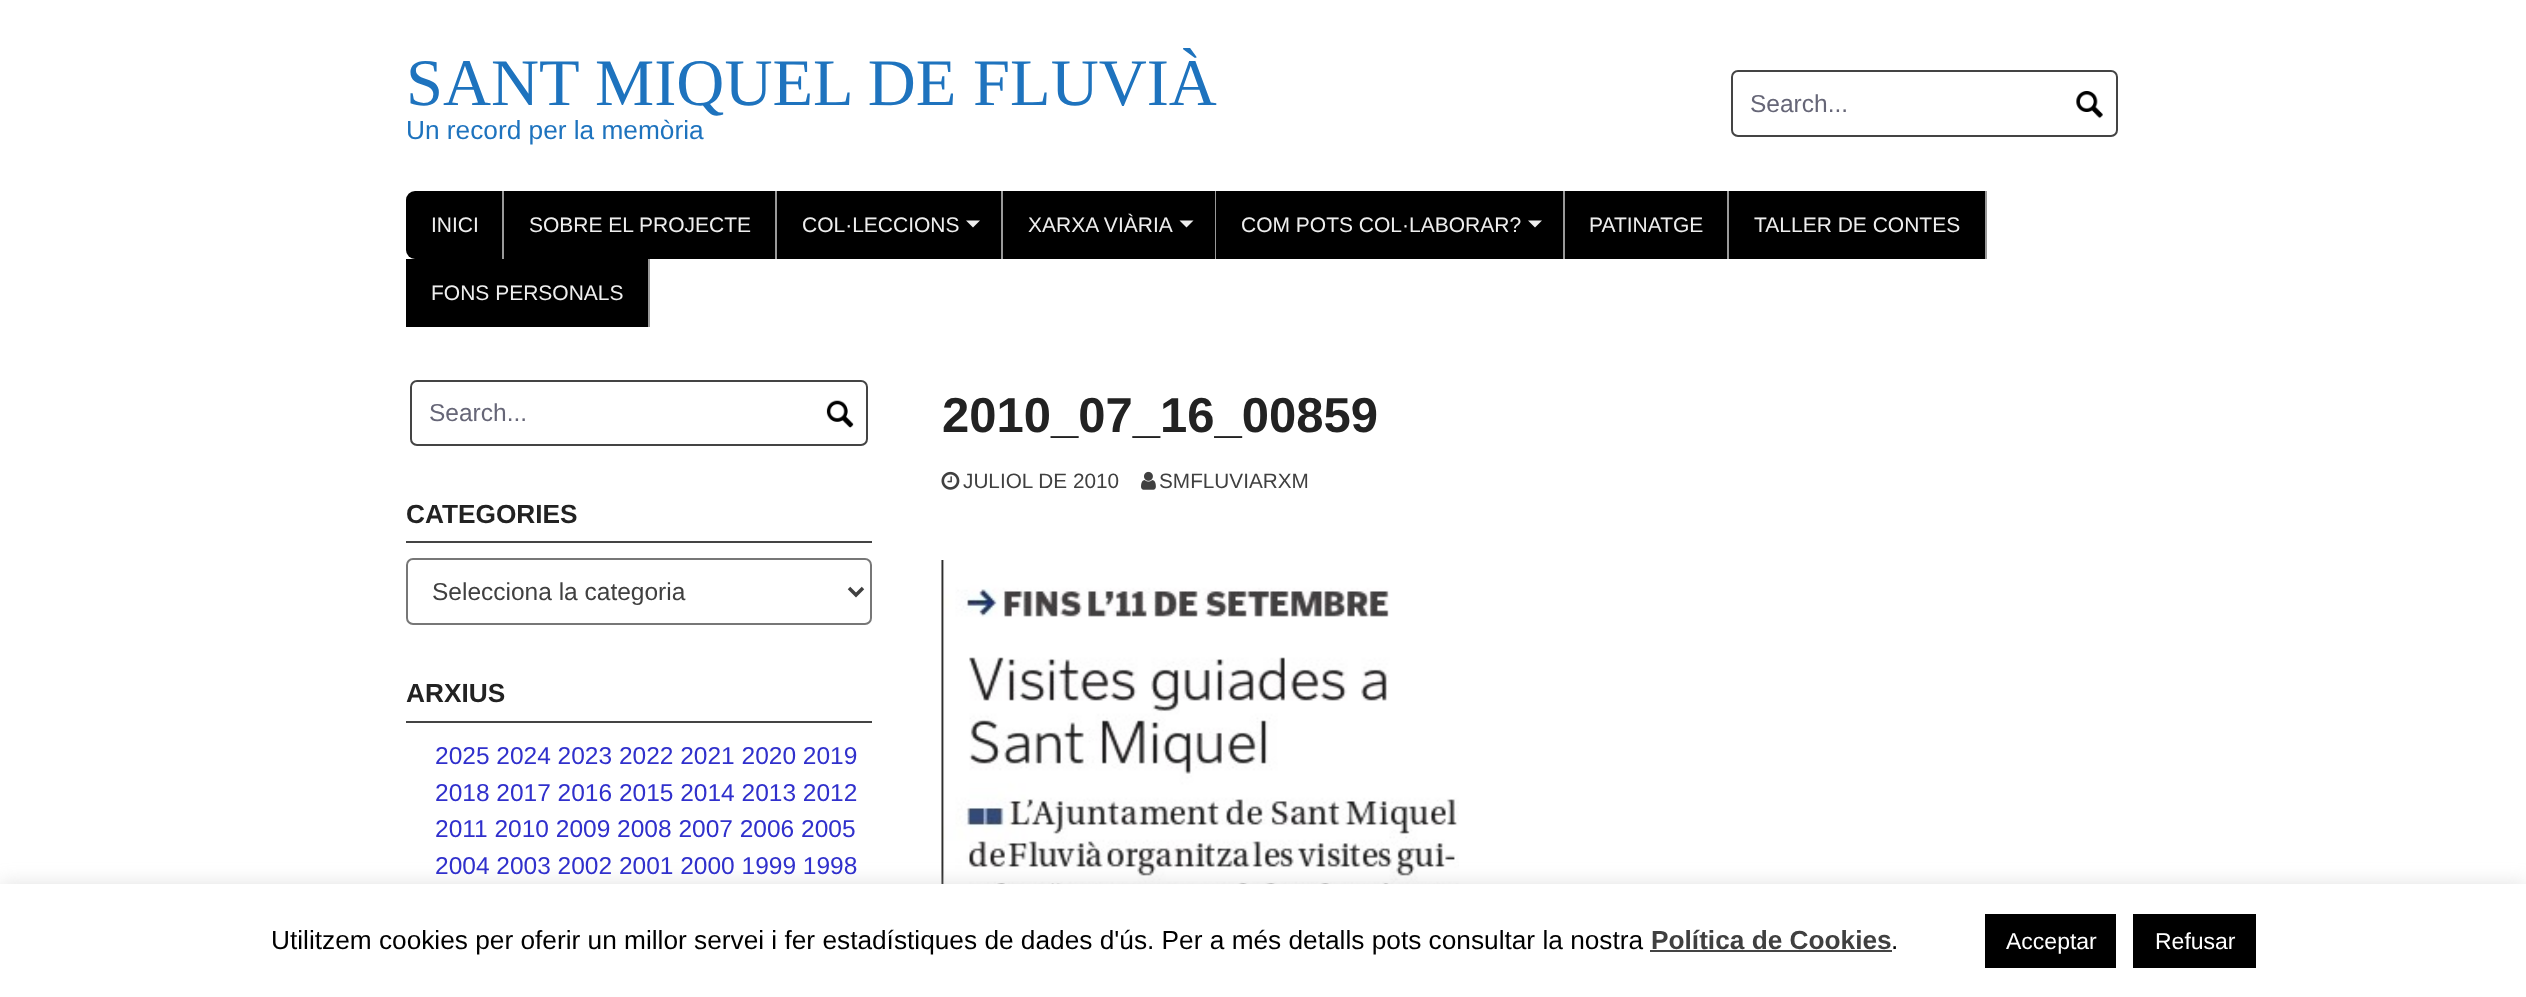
<!DOCTYPE html>
<meta charset="utf-8">
<style>body { margin: 0 } canvas { display: block }</style>
<canvas id="canvas" width="2526" height="997"></canvas>
<img id="img1" src="images/1.png" hidden>
<img id="img2" src="images/2.png" hidden>
<img id="img3" src="images/3.png" hidden>
<img id="img4" src="images/4.png" hidden>
<img id="img5" src="images/5.png" hidden>
<script>
window.onload = function () {
    const canvas = document.getElementById('canvas');
    const context = canvas.getContext('2d');
    context.miterLimit = 4;
    context.fontKerning = 'normal';

    context.fillStyle = 'rgb(255, 255, 255)';
    context.fillRect(0, 0, 2526, 997);
    context.beginPath();
    context.roundRect(1732, 71, 385, 65, 6);
    context.strokeStyle = 'rgb(68, 68, 68)';
    context.lineWidth = 2;
    context.stroke();
    context.drawImage(document.getElementById('img1'), 2076, 91, 27, 28);
    context.fillStyle = 'rgb(153, 153, 153)';
    context.fillRect(502, 191, 2, 68);
    context.fillStyle = 'rgb(0, 0, 0)';
    context.beginPath();
    context.roundRect(406, 191, 96, 68, [9, 0, 0, 9]);
    context.fill();
    context.fillStyle = 'rgb(153, 153, 153)';
    context.fillRect(775, 191, 2, 68);
    context.fillStyle = 'rgb(0, 0, 0)';
    context.fillRect(504, 191, 271, 68);
    context.fillStyle = 'rgb(153, 153, 153)';
    context.fillRect(1001, 191, 2, 68);
    context.fillStyle = 'rgb(0, 0, 0)';
    context.fillRect(777, 191, 224, 68);
    context.fillStyle = 'rgb(238, 238, 238)';
    context.beginPath();
    context.moveTo(966, 220.5);
    context.lineTo(980, 220.5);
    context.lineTo(973, 227.5);
    context.closePath();
    context.fill();
    context.fillStyle = 'rgb(153, 153, 153)';
    context.fillRect(1215, 191, 1, 68);
    context.fillStyle = 'rgb(0, 0, 0)';
    context.fillRect(1003, 191, 212, 68);
    context.fillStyle = 'rgb(238, 238, 238)';
    context.beginPath();
    context.moveTo(1179.5, 220.5);
    context.lineTo(1193.5, 220.5);
    context.lineTo(1186.5, 227.5);
    context.closePath();
    context.fill();
    context.fillStyle = 'rgb(153, 153, 153)';
    context.fillRect(1563, 191, 2, 68);
    context.fillStyle = 'rgb(0, 0, 0)';
    context.fillRect(1216, 191, 347, 68);
    context.fillStyle = 'rgb(238, 238, 238)';
    context.beginPath();
    context.moveTo(1528, 220.5);
    context.lineTo(1542, 220.5);
    context.lineTo(1535, 227.5);
    context.closePath();
    context.fill();
    context.fillStyle = 'rgb(153, 153, 153)';
    context.fillRect(1727, 191, 2, 68);
    context.fillStyle = 'rgb(0, 0, 0)';
    context.fillRect(1565, 191, 162, 68);
    context.fillStyle = 'rgb(153, 153, 153)';
    context.fillRect(1985, 191, 2, 68);
    context.fillStyle = 'rgb(0, 0, 0)';
    context.fillRect(1729, 191, 256, 68);
    context.fillStyle = 'rgb(153, 153, 153)';
    context.fillRect(648, 259, 2, 68);
    context.fillStyle = 'rgb(0, 0, 0)';
    context.fillRect(406, 259, 242, 68);
    context.beginPath();
    context.roundRect(411, 381, 456, 64, 6);
    context.stroke();
    context.drawImage(document.getElementById('img2'), 826, 400, 28, 28);
    context.fillStyle = 'rgb(68, 68, 68)';
    context.fillRect(406, 541, 466, 2);
    context.beginPath();
    context.roundRect(407, 559, 464, 65, 6);
    context.strokeStyle = 'rgb(119, 119, 119)';
    context.stroke();
    context.beginPath();
    context.moveTo(849, 588);
    context.lineTo(856, 595);
    context.lineTo(863, 588);
    context.strokeStyle = 'rgb(64, 64, 64)';
    context.lineWidth = 3.5;
    context.stroke();
    context.fillRect(406, 721, 466, 2);
    context.drawImage(document.getElementById('img3'), 941, 471, 19, 19);
    context.drawImage(document.getElementById('img4'), 1141, 471, 15, 19);
    context.drawImage(document.getElementById('img5'), 941, 560, 518, 324);
    context.fillStyle = 'rgba(172, 171, 171, 0.3)';
    context.filter = 'blur(9px)';
    context.beginPath();
    context.rect(0, 882, 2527, 114);
    context.fill();
    context.filter = 'none';
    context.fillStyle = 'rgb(255, 255, 255)';
    context.fillRect(0, 884, 2526, 113);
    context.fillStyle = 'rgb(68, 68, 68)';
    context.fillRect(1650, 950, 242, 2);
    context.fillStyle = 'rgb(0, 0, 0)';
    context.fillRect(1985, 914, 131, 54);
    context.fillRect(2133, 914, 123, 54);
    context.font = '66.5px Liberation Serif';
    context.fillStyle = 'rgb(30, 115, 190)';
    context.fillText('SANT MIQUEL DE FLUVIÀ', 406, 105);
    context.font = '26.25px Liberation Sans';
    context.fillText('Un record per la memòria', 406, 139);
    context.font = '24.5px Liberation Sans';
    context.fillStyle = 'rgb(102, 102, 119)';
    context.fillText('Search...', 1750, 112);
    context.font = '21px Liberation Sans';
    context.fillStyle = 'rgb(238, 238, 238)';
    context.fillText('INICI', 431, 232);
    context.fillText('SOBRE EL PROJECTE', 529, 232);
    context.fillText('COL·LECCIONS', 802, 232);
    context.fillText('XARXA VIÀRIA', 1028, 232);
    context.fillText('COM POTS COL·LABORAR?', 1241, 232);
    context.fillText('PATINATGE', 1589, 232);
    context.fillText('TALLER DE CONTES', 1754, 232);
    context.fillText('FONS PERSONALS', 431, 300);
    context.font = '24.5px Liberation Sans';
    context.fillStyle = 'rgb(102, 102, 119)';
    context.fillText('Search...', 429, 421);
    context.font = 'bold 26.25px Liberation Sans';
    context.fillStyle = 'rgb(34, 34, 34)';
    context.fillText('CATEGORIES', 406, 523);
    context.font = '24.5px Liberation Sans';
    context.fillStyle = 'rgb(64, 64, 64)';
    context.fillText('Selecciona la categoria', 432, 600);
    context.font = 'bold 26.25px Liberation Sans';
    context.fillStyle = 'rgb(34, 34, 34)';
    context.fillText('ARXIUS', 406, 702);
    context.font = '24.5px Liberation Sans';
    context.fillStyle = 'rgb(48, 48, 204)';
    context.fillText('2025 2024 2023 2022 2021 2020 2019', 435, 764);
    context.fillText('2018 2017 2016 2015 2014 2013 2012', 435, 801);
    context.fillText('2011 2010 2009 2008 2007 2006 2005', 435, 837);
    context.fillText('2004 2003 2002 2001 2000 1999 1998', 435, 874);
    context.font = 'bold 49px Liberation Sans';
    context.fillStyle = 'rgb(34, 34, 34)';
    context.fillText('2010_07_16_00859', 942, 432);
    context.font = '20.75px Liberation Sans';
    context.fillStyle = 'rgb(64, 64, 64)';
    context.fillText('JULIOL DE 2010', 963, 488);
    context.fillText('SMFLUVIARXM', 1159, 488);
    context.font = '26.25px Liberation Sans';
    context.fillStyle = 'rgb(0, 0, 0)';
    context.fillText('Utilitzem cookies per oferir un millor servei i fer estadístiques de dades d\'ús. Per a més detalls pots consultar la nostra', 271, 949);
    context.font = 'bold 26.25px Liberation Sans';
    context.fillStyle = 'rgb(64, 64, 64)';
    context.fillText('Política de Cookies', 1651, 949);
    context.font = '26.25px Liberation Sans';
    context.fillStyle = 'rgb(0, 0, 0)';
    context.fillText('.', 1891, 949);
    context.font = '23px Liberation Sans';
    context.fillStyle = 'rgb(255, 255, 255)';
    context.fillText('Acceptar', 2006, 949);
    context.fillText('Refusar', 2155, 949);
};
</script>
